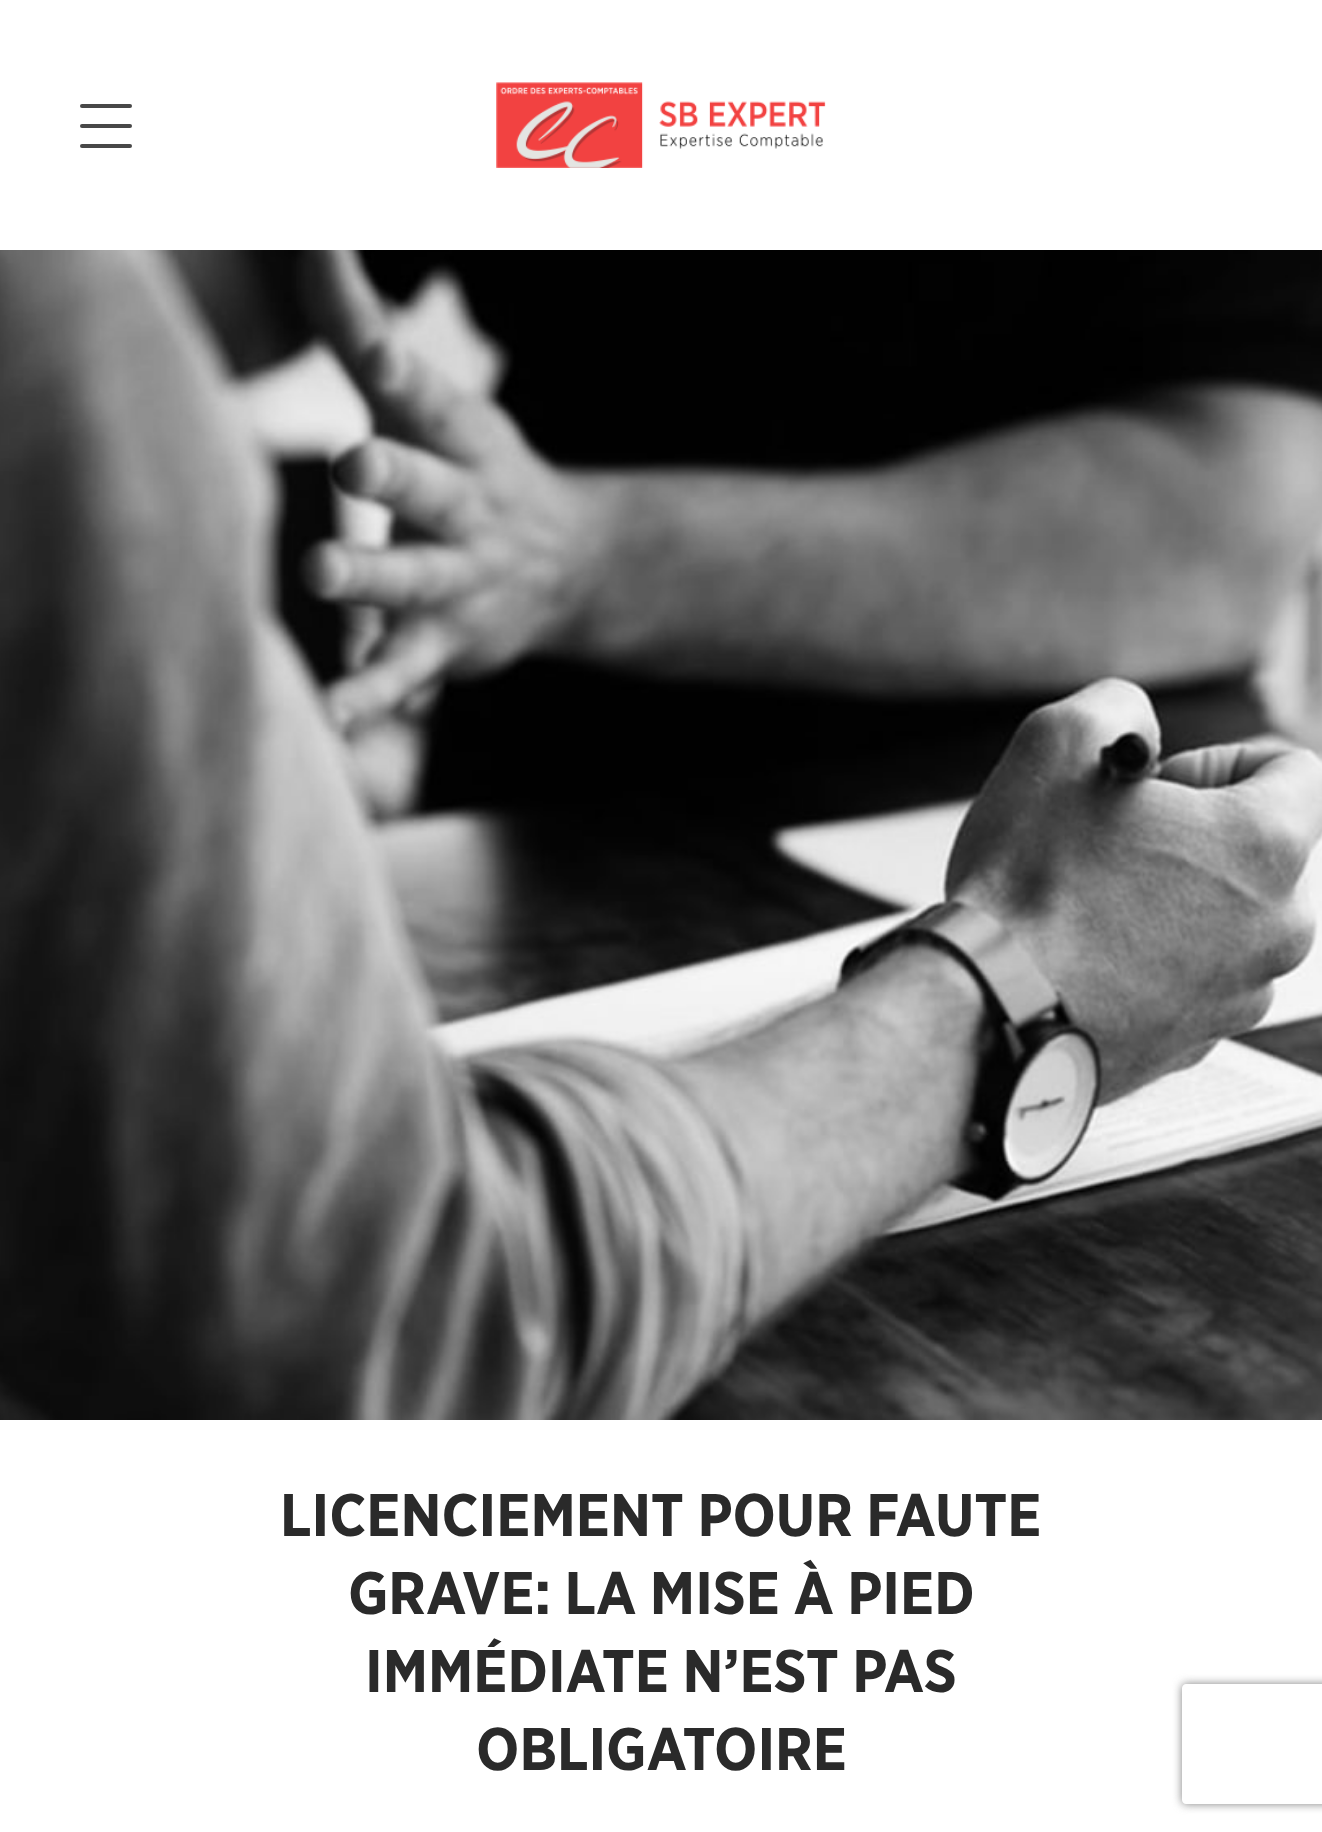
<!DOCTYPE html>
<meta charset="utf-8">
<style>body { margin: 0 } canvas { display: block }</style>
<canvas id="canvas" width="1322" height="1832"></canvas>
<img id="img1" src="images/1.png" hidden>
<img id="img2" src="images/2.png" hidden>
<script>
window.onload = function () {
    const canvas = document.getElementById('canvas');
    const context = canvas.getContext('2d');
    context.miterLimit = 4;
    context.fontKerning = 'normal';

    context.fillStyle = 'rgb(255, 255, 255)';
    context.fillRect(0, 0, 1322, 1832);
    context.fillStyle = 'rgb(72, 72, 72)';
    context.beginPath();
    context.roundRect(80, 104, 52, 4, 2);
    context.fill();
    context.beginPath();
    context.roundRect(80, 124, 52, 4, 2);
    context.fill();
    context.beginPath();
    context.roundRect(80, 144, 52, 4, 2);
    context.fill();
    context.drawImage(document.getElementById('img1'), 496, 82, 330, 86);
    context.drawImage(document.getElementById('img2'), 0, 250, 1322, 1170);
    context.save();
    context.beginPath();
    context.moveTo(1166, 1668);
    context.lineTo(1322, 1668);
    context.lineTo(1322, 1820);
    context.lineTo(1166, 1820);
    context.closePath();
    context.moveTo(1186, 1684);
    context.lineTo(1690, 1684);
    context.bezierCurveTo(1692, 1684, 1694, 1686, 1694, 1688);
    context.lineTo(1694, 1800);
    context.bezierCurveTo(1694, 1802, 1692, 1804, 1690, 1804);
    context.lineTo(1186, 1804);
    context.bezierCurveTo(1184, 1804, 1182, 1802, 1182, 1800);
    context.lineTo(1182, 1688);
    context.bezierCurveTo(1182, 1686, 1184, 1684, 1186, 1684);
    context.closePath();
    context.clip('evenodd');
    context.fillStyle = 'rgb(128, 128, 128)';
    context.filter = 'blur(5px)';
    context.beginPath();
    context.roundRect(1182, 1684, 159, 120, 4);
    context.fill();
    context.filter = 'none';
    context.restore();
    context.font = 'bold 60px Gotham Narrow';
    context.fillStyle = 'rgb(42, 42, 42)';
    context.fillText('LICENCIEMENT POUR FAUTE', 280, 1536);
    context.fillText('GRAVE: LA MISE À PIED', 348, 1614);
    context.fillText('IMMÉDIATE N’EST PAS', 365, 1692);
    context.fillText('OBLIGATOIRE', 476, 1770);
};
</script>
